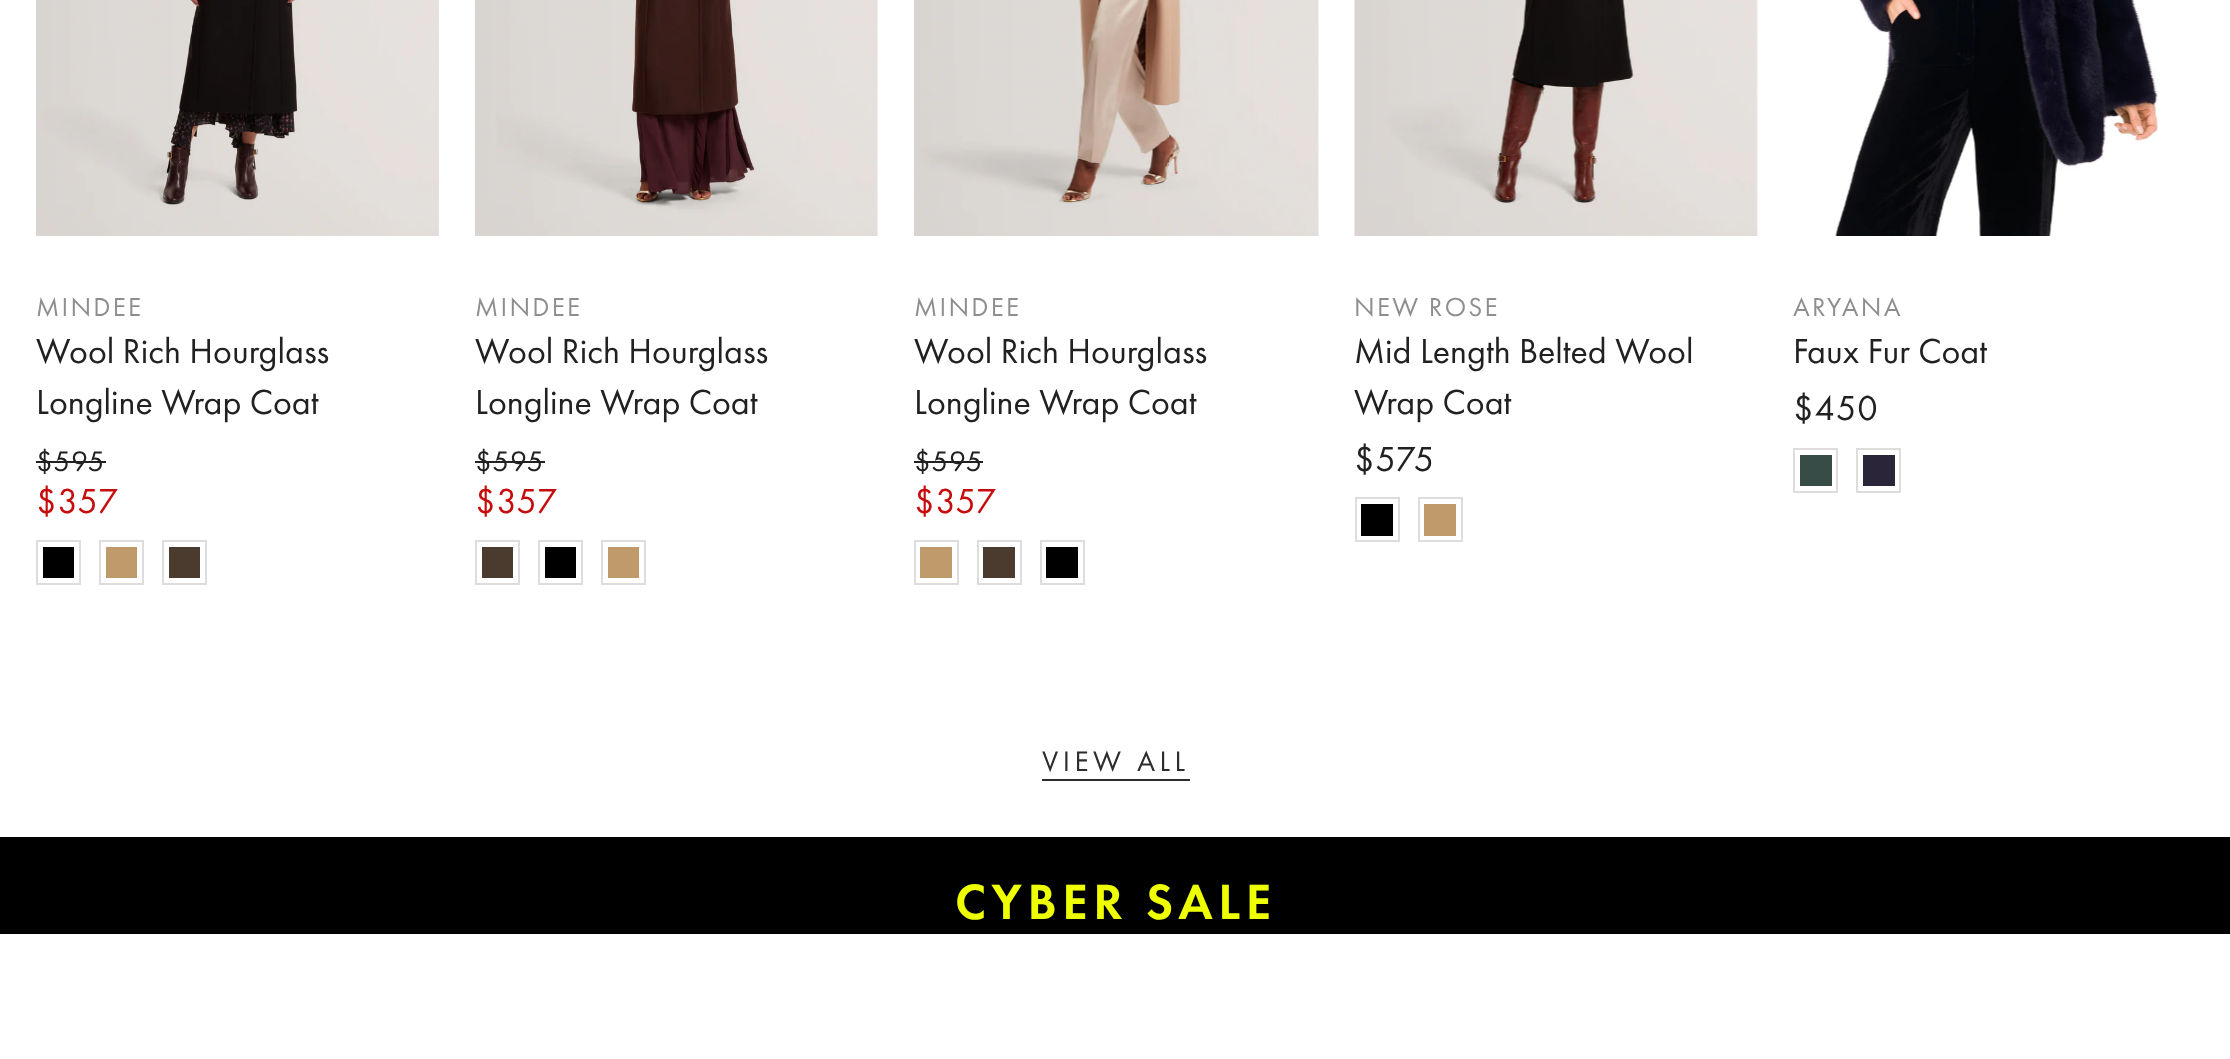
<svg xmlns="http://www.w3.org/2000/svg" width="2230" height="1059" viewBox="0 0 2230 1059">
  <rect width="100%" height="100%" fill="rgb(255,255,255)"/>
  <image x="36" y="0" width="403" height="236" href="pic1.png"/>
  <text x="36" y="316" font-family="Futura PT" font-size="27" letter-spacing="2.25" fill="rgb(142,142,142)">MINDEE</text>
  <g font-family="Futura PT" font-size="36" fill="rgb(33,33,33)">
    <text>
      <tspan x="36" y="363">Wool Rich Hourglass</tspan>
      <tspan x="36" y="414">Longline Wrap Coat</tspan>
    </text>
  </g>
  <text x="36" y="471" font-family="Futura PT" font-size="29.25" letter-spacing="1" fill="rgb(33,33,33)">$595</text>
  <rect x="36" y="461" width="70" height="2" fill="rgb(33,33,33)"/>
  <text x="36" y="513" font-family="Futura PT" font-size="36" letter-spacing="1" fill="rgb(198,12,12)">$357</text>
  <rect x="37" y="541" width="43" height="43" fill="none" stroke="rgb(221,221,221)" stroke-width="2"/>
  <rect x="43" y="547" width="31" height="31" fill="rgb(0,0,0)"/>
  <rect x="100" y="541" width="43" height="43" fill="none" stroke="rgb(221,221,221)" stroke-width="2"/>
  <rect x="106" y="547" width="31" height="31" fill="rgb(193,154,107)"/>
  <rect x="163" y="541" width="43" height="43" fill="none" stroke="rgb(221,221,221)" stroke-width="2"/>
  <rect x="169" y="547" width="31" height="31" fill="rgb(75,59,47)"/>
  <image x="475" y="0" width="403" height="236" href="pic2.png"/>
  <text x="475" y="316" font-family="Futura PT" font-size="27" letter-spacing="2.25" fill="rgb(142,142,142)">MINDEE</text>
  <g font-family="Futura PT" font-size="36" fill="rgb(33,33,33)">
    <text>
      <tspan x="475" y="363">Wool Rich Hourglass</tspan>
      <tspan x="475" y="414">Longline Wrap Coat</tspan>
    </text>
  </g>
  <text x="475" y="471" font-family="Futura PT" font-size="29.25" letter-spacing="1" fill="rgb(33,33,33)">$595</text>
  <rect x="475" y="461" width="70" height="2" fill="rgb(33,33,33)"/>
  <text x="475" y="513" font-family="Futura PT" font-size="36" letter-spacing="1" fill="rgb(198,12,12)">$357</text>
  <rect x="476" y="541" width="43" height="43" fill="none" stroke="rgb(221,221,221)" stroke-width="2"/>
  <rect x="482" y="547" width="31" height="31" fill="rgb(75,59,47)"/>
  <rect x="539" y="541" width="43" height="43" fill="none" stroke="rgb(221,221,221)" stroke-width="2"/>
  <rect x="545" y="547" width="31" height="31" fill="rgb(0,0,0)"/>
  <rect x="602" y="541" width="43" height="43" fill="none" stroke="rgb(221,221,221)" stroke-width="2"/>
  <rect x="608" y="547" width="31" height="31" fill="rgb(193,154,107)"/>
  <image x="914" y="0" width="405" height="236" href="pic3.png"/>
  <text x="914" y="316" font-family="Futura PT" font-size="27" letter-spacing="2.25" fill="rgb(142,142,142)">MINDEE</text>
  <g font-family="Futura PT" font-size="36" fill="rgb(33,33,33)">
    <text>
      <tspan x="914" y="363">Wool Rich Hourglass</tspan>
      <tspan x="914" y="414">Longline Wrap Coat</tspan>
    </text>
  </g>
  <text x="914" y="471" font-family="Futura PT" font-size="29.25" letter-spacing="1" fill="rgb(33,33,33)">$595</text>
  <rect x="914" y="461" width="69" height="2" fill="rgb(33,33,33)"/>
  <text x="914" y="513" font-family="Futura PT" font-size="36" letter-spacing="1" fill="rgb(198,12,12)">$357</text>
  <rect x="915" y="541" width="43" height="43" fill="none" stroke="rgb(221,221,221)" stroke-width="2"/>
  <rect x="920" y="547" width="32" height="31" fill="rgb(193,154,107)"/>
  <rect x="978" y="541" width="43" height="43" fill="none" stroke="rgb(221,221,221)" stroke-width="2"/>
  <rect x="983" y="547" width="32" height="31" fill="rgb(75,59,47)"/>
  <rect x="1041" y="541" width="43" height="43" fill="none" stroke="rgb(221,221,221)" stroke-width="2"/>
  <rect x="1046" y="547" width="32" height="31" fill="rgb(0,0,0)"/>
  <image x="1354" y="0" width="404" height="236" href="pic4.png"/>
  <text x="1354" y="316" font-family="Futura PT" font-size="27" letter-spacing="2.25" fill="rgb(142,142,142)">NEW ROSE</text>
  <g font-family="Futura PT" font-size="36" fill="rgb(33,33,33)">
    <text>
      <tspan x="1354" y="363">Mid Length Belted Wool</tspan>
      <tspan x="1354" y="414">Wrap Coat</tspan>
    </text>
  </g>
  <text x="1354" y="471" font-family="Futura PT" font-size="36" letter-spacing="1" fill="rgb(33,33,33)">$575</text>
  <rect x="1356" y="498" width="43" height="43" fill="none" stroke="rgb(221,221,221)" stroke-width="2"/>
  <rect x="1361" y="504" width="32" height="32" fill="rgb(0,0,0)"/>
  <rect x="1419" y="498" width="43" height="43" fill="none" stroke="rgb(221,221,221)" stroke-width="2"/>
  <rect x="1424" y="504" width="32" height="32" fill="rgb(193,154,107)"/>
  <image x="1835" y="0" width="323" height="236" href="pic5.png"/>
  <text x="1793" y="316" font-family="Futura PT" font-size="27" letter-spacing="2.25" fill="rgb(142,142,142)">ARYANA</text>
  <text x="1793" y="363" font-family="Futura PT" font-size="36" fill="rgb(33,33,33)">Faux Fur Coat</text>
  <text x="1793" y="420" font-family="Futura PT" font-size="36" letter-spacing="1" fill="rgb(33,33,33)">$450</text>
  <rect x="1794" y="449" width="43" height="43" fill="none" stroke="rgb(221,221,221)" stroke-width="2"/>
  <rect x="1800" y="455" width="32" height="31" fill="rgb(55,76,70)"/>
  <rect x="1857" y="449" width="43" height="43" fill="none" stroke="rgb(221,221,221)" stroke-width="2"/>
  <rect x="1863" y="455" width="32" height="31" fill="rgb(42,37,57)"/>
  <text x="1042" y="771" font-family="Futura PT" font-size="29.25" letter-spacing="4.5" fill="rgb(45,45,45)">VIEW ALL</text>
  <rect x="1042" y="779" width="148" height="2" fill="rgb(45,45,45)"/>
  <rect x="0" y="837" width="2230" height="97" fill="rgb(0,0,0)"/>
  <text x="955" y="919" font-family="Futura PT" font-size="51.25" font-weight="500" letter-spacing="5.6" fill="rgb(238,255,0)">CYBER SALE</text>
</svg>
